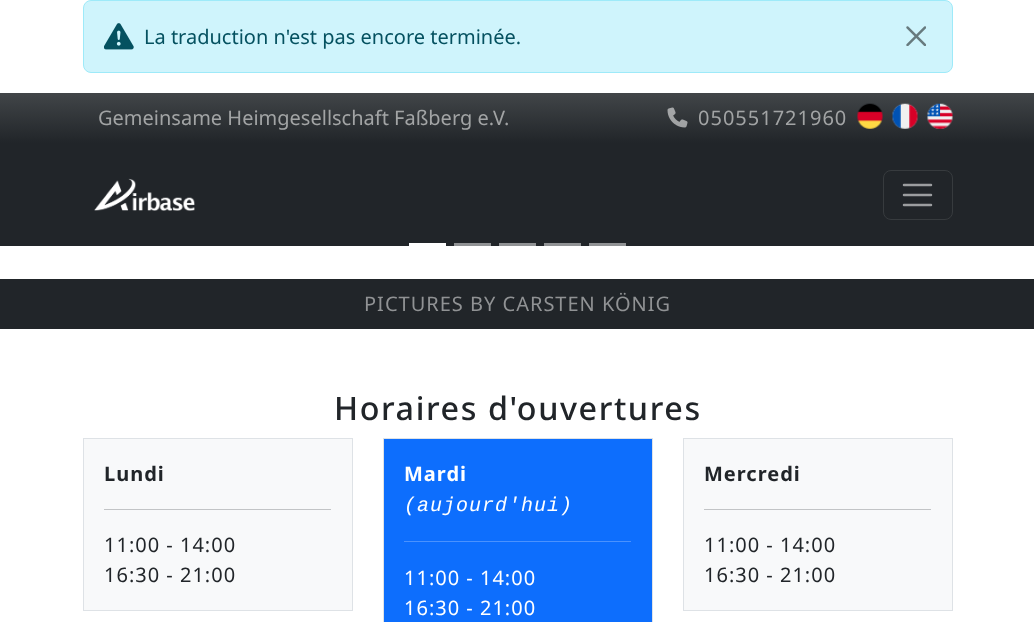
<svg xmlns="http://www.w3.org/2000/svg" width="1034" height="622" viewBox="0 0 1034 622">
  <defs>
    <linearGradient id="g1" gradientUnits="userSpaceOnUse" x1="518" y1="92" x2="518" y2="143"><stop offset="0" stop-color="rgb(66,70,73)"/><stop offset="1" stop-color="rgb(33,37,41)"/></linearGradient>
  </defs>
  <rect width="100%" height="100%" fill="rgb(255,255,255)"/>
  <rect x="83.5" y="0.5" width="869" height="72" rx="7.5" fill="rgb(207,244,252)" stroke="rgb(158,234,249)"/>
  <image x="104" y="23" width="30" height="27" href="pic1.png"/>
  <text x="144" y="44" font-family="Noto Sans" font-size="20" fill="rgb(5,81,96)">La traduction n'est pas encore terminée.</text>
  <image x="906" y="26" width="20" height="20" href="pic2.png"/>
  <rect x="0" y="93" width="1034" height="50" fill="url(#g1)"/>
  <text x="98" y="125" font-family="Noto Sans" font-size="20" fill="rgb(162,164,165)">Gemeinsame Heimgesellschaft Faßberg e.V.</text>
  <image x="667" y="107" width="21" height="21" href="pic3.png"/>
  <text x="698" y="125" font-family="Noto Sans" font-size="20" letter-spacing="1" fill="rgb(162,164,165)">050551721960</text>
  <image x="857" y="103" width="26" height="26" href="pic4.png"/>
  <image x="892" y="103" width="26" height="26" href="pic5.png"/>
  <image x="927" y="103" width="26" height="26" href="pic6.png"/>
  <rect x="0" y="143" width="1034" height="103" fill="rgb(33,37,41)"/>
  <rect x="589" y="243" width="37" height="3" fill="rgb(144,146,148)"/>
  <rect x="544" y="243" width="37" height="3" fill="rgb(144,146,148)"/>
  <rect x="499" y="243" width="37" height="3" fill="rgb(144,146,148)"/>
  <rect x="454" y="243" width="37" height="3" fill="rgb(144,146,148)"/>
  <image x="94" y="178" width="101" height="33" href="pic7.png"/>
  <rect x="883.5" y="170.5" width="69" height="49" rx="7.5" fill="none" stroke="rgb(55,59,62)"/>
  <path d="M904 185H931M904 195H931M904 205H931" fill="none" stroke="rgb(155,157,159)" stroke-width="2.5" stroke-linecap="round"/>
  <rect x="409" y="243" width="37" height="3" fill="rgb(255,255,255)"/>
  <rect x="0" y="279" width="1034" height="50" fill="rgb(33,37,41)"/>
  <text x="364" y="311" font-family="Noto Sans" font-size="20" letter-spacing="1" fill="rgb(144,146,148)">PICTURES BY CARSTEN KÖNIG</text>
  <text x="334" y="420" font-family="Noto Sans" font-size="32.25" font-weight="500" letter-spacing="1.6" fill="rgb(33,37,41)">Horaires d'ouvertures</text>
  <rect x="83.5" y="438.5" width="269" height="172" fill="rgb(248,249,250)" stroke="rgb(222,226,230)"/>
  <text x="104" y="481" font-family="Noto Sans" font-size="20" font-weight="bold" letter-spacing="1" fill="rgb(33,37,41)">Lundi</text>
  <rect x="104" y="509" width="227" height="1" fill="rgb(194,196,198)"/>
  <g font-family="Noto Sans" font-size="20" letter-spacing="1" fill="rgb(33,37,41)">
    <text>
      <tspan x="104" y="552">11:00 - 14:00</tspan>
      <tspan x="104" y="582">16:30 - 21:00</tspan>
    </text>
  </g>
  <rect x="383.5" y="438.5" width="269" height="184" fill="rgb(13,110,253)" stroke="rgb(222,226,230)"/>
  <text x="404" y="481" font-family="Noto Sans" font-size="20" font-weight="bold" letter-spacing="1" fill="rgb(255,255,255)">Mardi</text>
  <text x="404" y="511" font-family="Liberation Mono" font-size="20" font-style="italic" letter-spacing="1" fill="rgb(255,255,255)">(aujourd'hui)</text>
  <rect x="404" y="541" width="227" height="1" fill="rgb(74,146,254)"/>
  <g font-family="Noto Sans" font-size="20" letter-spacing="1" fill="rgb(255,255,255)">
    <text>
      <tspan x="404" y="585">11:00 - 14:00</tspan>
      <tspan x="404" y="615">16:30 - 21:00</tspan>
    </text>
  </g>
  <rect x="683.5" y="438.5" width="269" height="172" fill="rgb(248,249,250)" stroke="rgb(222,226,230)"/>
  <text x="704" y="481" font-family="Noto Sans" font-size="20" font-weight="bold" letter-spacing="1" fill="rgb(33,37,41)">Mercredi</text>
  <rect x="704" y="509" width="227" height="1" fill="rgb(194,196,198)"/>
  <g font-family="Noto Sans" font-size="20" letter-spacing="1" fill="rgb(33,37,41)">
    <text>
      <tspan x="704" y="552">11:00 - 14:00</tspan>
      <tspan x="704" y="582">16:30 - 21:00</tspan>
    </text>
  </g>
</svg>
